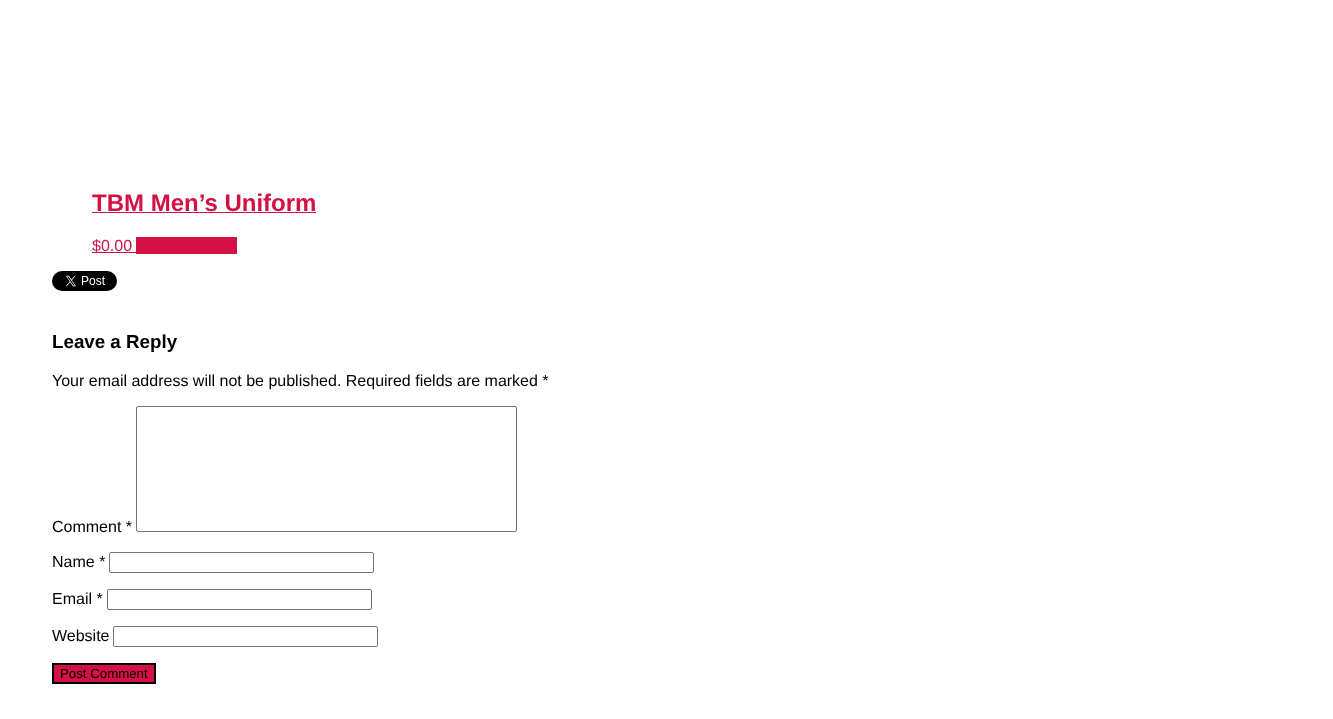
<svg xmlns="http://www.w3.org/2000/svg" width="1333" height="719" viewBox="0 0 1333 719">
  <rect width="100%" height="100%" fill="rgb(255,255,255)"/>
  <text x="92" y="211" font-family="Liberation Sans" font-size="24" font-weight="bold" fill="rgb(211,17,69)">TBM Men’s Uniform</text>
  <rect x="92" y="212" width="224" height="1" fill="rgb(211,17,69)"/>
  <rect x="92" y="252" width="8" height="1" fill="rgb(211,17,69)"/>
  <text x="92" y="251" font-family="Liberation Sans" font-size="16" fill="rgb(211,17,69)">$0.00</text>
  <rect x="100" y="252" width="36" height="1" fill="rgb(211,17,69)"/>
  <rect x="136" y="237" width="101" height="17" fill="rgb(211,17,69)"/>
  <image x="52" y="271" width="65" height="20" href="pic1.png"/>
  <text x="52" y="348" font-family="Liberation Sans" font-size="18.75" font-weight="bold" fill="rgb(0,0,0)">Leave a Reply</text>
  <g font-family="Liberation Sans" font-size="16" fill="rgb(0,0,0)">
    <text x="52" y="386">Your email address will not be published. Required fields are marked *</text>
    <text x="52" y="532">Comment *</text>
  </g>
  <rect x="136.5" y="406.5" width="380" height="125" rx="1.5" fill="none" stroke="rgb(118,118,118)"/>
  <text x="52" y="567" font-family="Liberation Sans" font-size="16" fill="rgb(0,0,0)">Name *</text>
  <rect x="109.5" y="552.5" width="264" height="20" rx="1.5" fill="none" stroke="rgb(118,118,118)"/>
  <text x="52" y="604" font-family="Liberation Sans" font-size="16" fill="rgb(0,0,0)">Email *</text>
  <rect x="107.5" y="589.5" width="264" height="20" rx="1.5" fill="none" stroke="rgb(118,118,118)"/>
  <text x="52" y="641" font-family="Liberation Sans" font-size="16" fill="rgb(0,0,0)">Website</text>
  <rect x="113.5" y="626.5" width="264" height="20" rx="1.5" fill="none" stroke="rgb(118,118,118)"/>
  <rect x="53" y="664" width="102" height="19" fill="rgb(211,17,69)" stroke="rgb(0,0,0)" stroke-width="2"/>
  <text x="60" y="678" font-family="Liberation Sans" font-size="13.25" fill="rgb(0,0,0)">Post Comment</text>
</svg>
